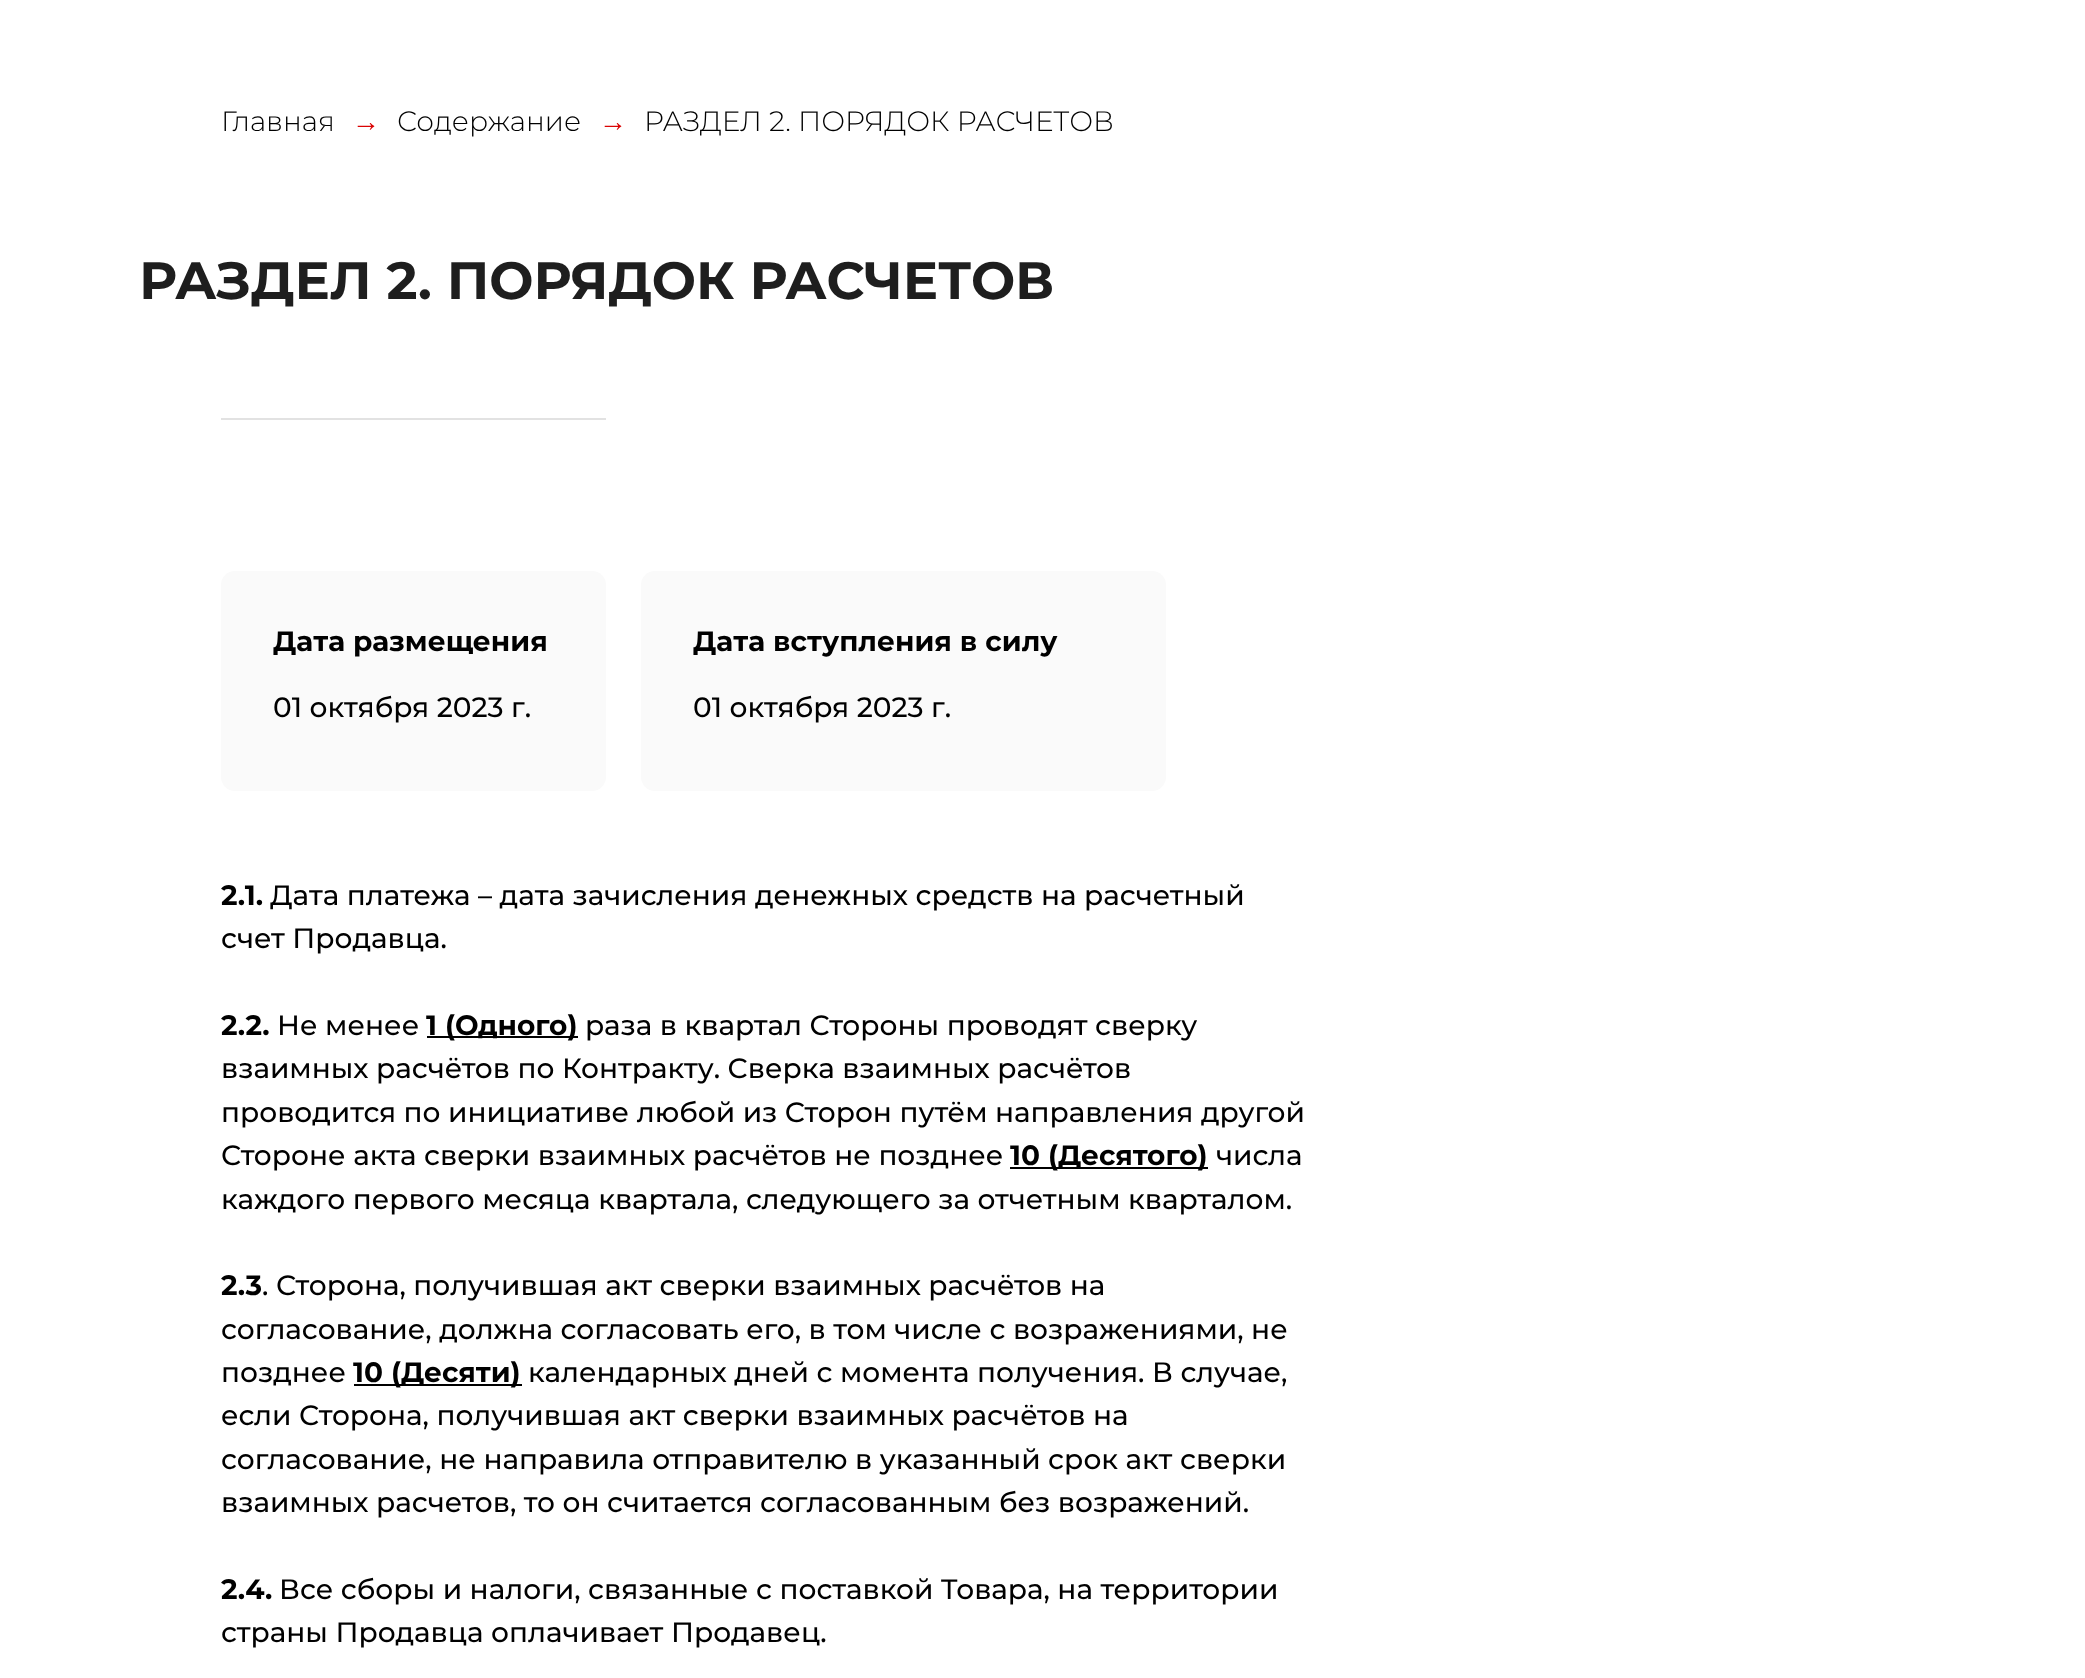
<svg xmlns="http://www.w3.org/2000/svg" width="2085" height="1678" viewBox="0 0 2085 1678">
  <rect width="100%" height="100%" fill="rgb(255,255,255)"/>
  <text x="221" y="131" font-family="Montserrat" font-size="28" font-weight="300" fill="rgb(0,0,0)">Главная</text>
  <text x="352" y="131" font-family="Liberation Sans" font-size="28" fill="rgb(218,4,4)">→</text>
  <text x="397" y="131" font-family="Montserrat" font-size="28" font-weight="300" fill="rgb(0,0,0)">Содержание</text>
  <text x="599" y="131" font-family="Liberation Sans" font-size="28" fill="rgb(218,4,4)">→</text>
  <text x="644" y="131" font-family="Montserrat" font-size="28" font-weight="300" fill="rgb(0,0,0)">РАЗДЕЛ 2. ПОРЯДОК РАСЧЕТОВ</text>
  <text x="139" y="299" font-family="Montserrat" font-size="52.5" font-weight="bold" fill="rgb(30,30,30)">РАЗДЕЛ 2. ПОРЯДОК РАСЧЕТОВ</text>
  <rect x="221" y="418" width="385" height="2" fill="rgb(226,226,226)"/>
  <rect x="221" y="571" width="385" height="220" rx="14" fill="rgb(250,250,250)"/>
  <text x="273" y="651" font-family="Montserrat" font-size="28" font-weight="bold" fill="rgb(0,0,0)">Дата размещения</text>
  <text x="273" y="717" font-family="Montserrat" font-size="28" font-weight="500" fill="rgb(0,0,0)">01 октября 2023 г.</text>
  <rect x="641" y="571" width="525" height="220" rx="14" fill="rgb(250,250,250)"/>
  <text x="693" y="651" font-family="Montserrat" font-size="28" font-weight="bold" fill="rgb(0,0,0)">Дата вступления в силу</text>
  <text x="693" y="717" font-family="Montserrat" font-size="28" font-weight="500" fill="rgb(0,0,0)">01 октября 2023 г.</text>
  <text x="221" y="905" font-family="Montserrat" font-size="28" font-weight="bold" fill="rgb(0,0,0)">2.1.</text>
  <g font-family="Montserrat" font-size="28" font-weight="500" fill="rgb(0,0,0)">
    <text x="270" y="905">Дата платежа – дата зачисления денежных средств на расчетный</text>
    <text x="221" y="948">счет Продавца.</text>
  </g>
  <text x="221" y="1035" font-family="Montserrat" font-size="28" font-weight="bold" fill="rgb(0,0,0)">2.2.</text>
  <text x="277" y="1035" font-family="Montserrat" font-size="28" font-weight="500" fill="rgb(0,0,0)">Не менее</text>
  <rect x="427" y="1036" width="151" height="2" fill="rgb(0,0,0)"/>
  <text x="426" y="1035" font-family="Montserrat" font-size="28" font-weight="bold" fill="rgb(0,0,0)">1 (Одного)</text>
  <g font-family="Montserrat" font-size="28" font-weight="500" fill="rgb(0,0,0)">
    <text x="585" y="1035">раза в квартал Стороны проводят сверку</text>
    <text>
      <tspan x="221" y="1078">взаимных расчётов по Контракту. Сверка взаимных расчётов</tspan>
      <tspan x="221" y="1122">проводится по инициативе любой из Сторон путём направления другой</tspan>
      <tspan x="221" y="1165">Стороне акта сверки взаимных расчётов не позднее</tspan>
    </text>
  </g>
  <rect x="1010" y="1167" width="198" height="2" fill="rgb(0,0,0)"/>
  <text x="1010" y="1165" font-family="Montserrat" font-size="28" font-weight="bold" fill="rgb(0,0,0)">10 (Десятого)</text>
  <g font-family="Montserrat" font-size="28" font-weight="500" fill="rgb(0,0,0)">
    <text x="1216" y="1165">числа</text>
    <text x="221" y="1209">каждого первого месяца квартала, следующего за отчетным кварталом.</text>
  </g>
  <text x="221" y="1295" font-family="Montserrat" font-size="28" font-weight="bold" fill="rgb(0,0,0)">2.3</text>
  <g font-family="Montserrat" font-size="28" font-weight="500" fill="rgb(0,0,0)">
    <text x="262" y="1295">. Сторона, получившая акт сверки взаимных расчётов на</text>
    <text>
      <tspan x="221" y="1339">согласование, должна согласовать его, в том числе с возражениями, не</tspan>
      <tspan x="221" y="1382">позднее</tspan>
    </text>
  </g>
  <rect x="354" y="1384" width="168" height="2" fill="rgb(0,0,0)"/>
  <text x="353" y="1382" font-family="Montserrat" font-size="28" font-weight="bold" fill="rgb(0,0,0)">10 (Десяти)</text>
  <g font-family="Montserrat" font-size="28" font-weight="500" fill="rgb(0,0,0)">
    <text x="528" y="1382">календарных дней с момента получения. В случае,</text>
    <text>
      <tspan x="221" y="1425">если Сторона, получившая акт сверки взаимных расчётов на</tspan>
      <tspan x="221" y="1469">согласование, не направила отправителю в указанный срок акт сверки</tspan>
      <tspan x="221" y="1512">взаимных расчетов, то он считается согласованным без возражений.</tspan>
    </text>
  </g>
  <text x="221" y="1599" font-family="Montserrat" font-size="28" font-weight="bold" fill="rgb(0,0,0)">2.4.</text>
  <g font-family="Montserrat" font-size="28" font-weight="500" fill="rgb(0,0,0)">
    <text x="279" y="1599">Все сборы и налоги, связанные с поставкой Товара, на территории</text>
    <text x="221" y="1642">страны Продавца оплачивает Продавец.</text>
  </g>
</svg>
